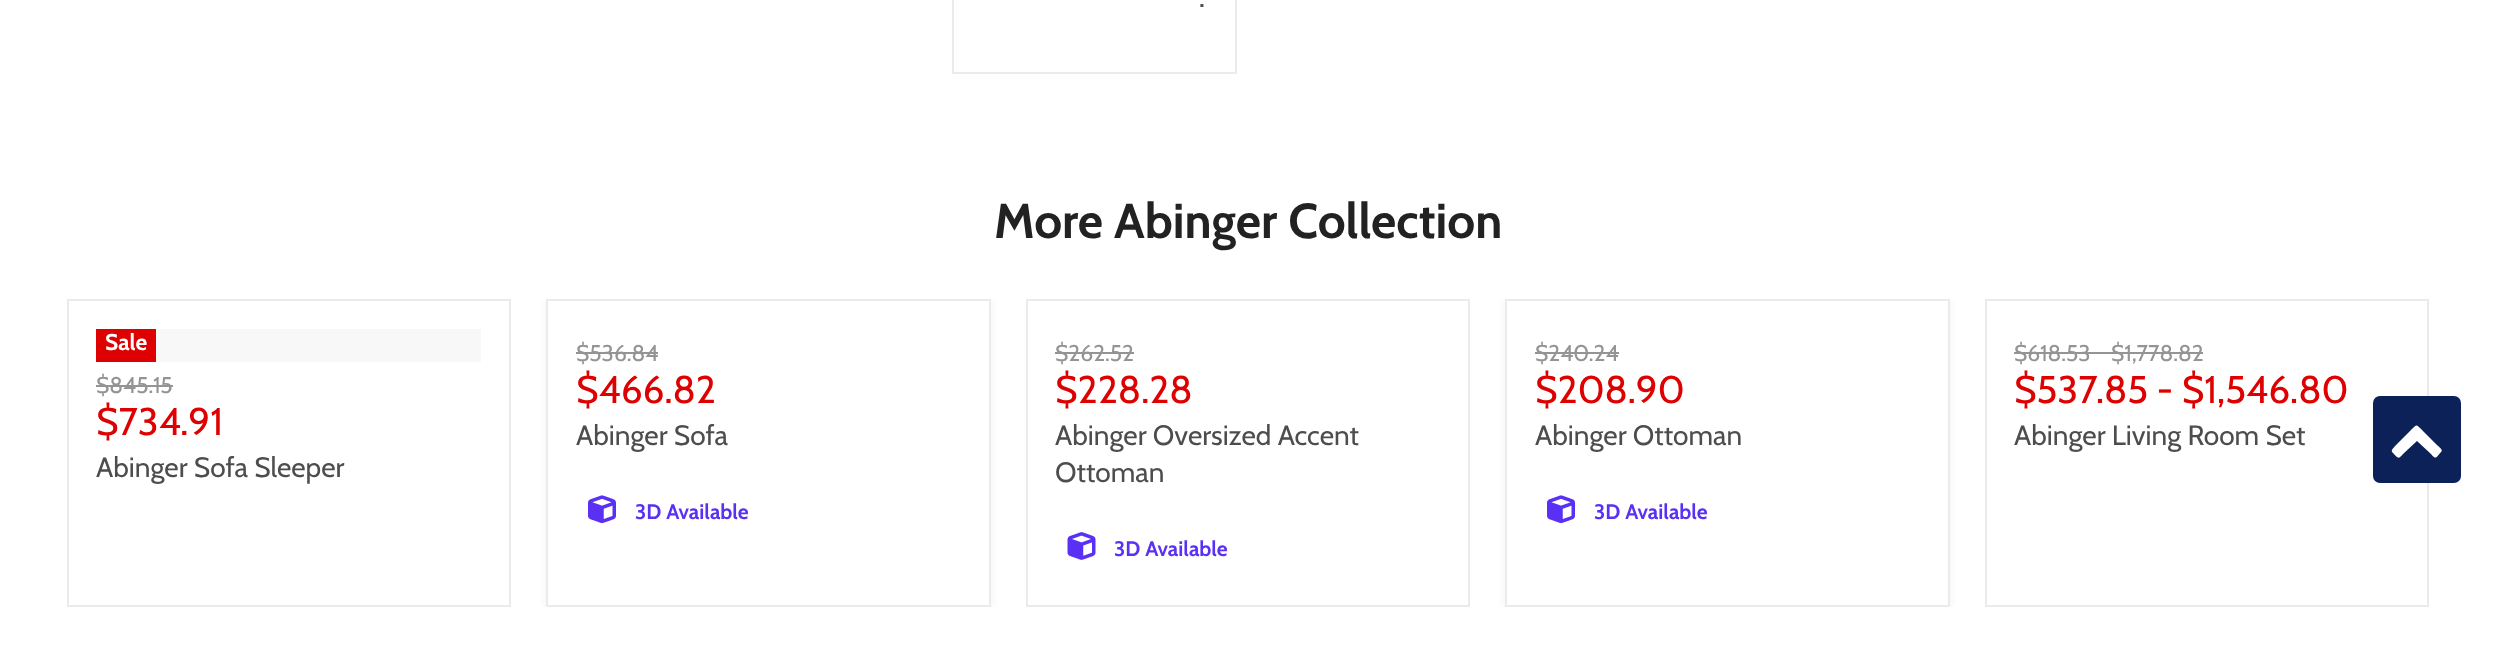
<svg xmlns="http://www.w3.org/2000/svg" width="2494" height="658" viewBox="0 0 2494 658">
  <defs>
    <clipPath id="clip1"><rect x="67" y="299" width="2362" height="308"/></clipPath>
  </defs>
  <rect width="100%" height="100%" fill="rgb(255,255,255)"/>
  <rect x="953" y="-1" width="283" height="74" fill="none" stroke="rgba(128,128,128,0.16)" stroke-width="2"/>
  <text x="1199" y="7" font-family="Cabin" font-size="28" fill="rgb(77,77,77)">.</text>
  <text x="994" y="238" font-family="Cabin" font-size="49" font-weight="bold" fill="rgb(34,34,34)">More Abinger Collection</text>
  <rect x="68" y="300" width="442" height="306" fill="none" stroke="rgb(235,235,235)" stroke-width="2"/>
  <rect x="96" y="329" width="60" height="33" fill="rgb(222,1,1)"/>
  <text x="105" y="350" font-family="Cabin" font-size="22.75" font-weight="bold" fill="rgb(255,255,255)">Sale</text>
  <rect x="156" y="329" width="325" height="33" fill="rgb(248,248,248)"/>
  <text x="96" y="393" font-family="Cabin" font-size="22.75" fill="rgb(148,148,148)">$845.15</text>
  <rect x="96" y="385" width="77" height="2" fill="rgb(148,148,148)"/>
  <text x="96" y="435" font-family="Cabin" font-size="38.5" fill="rgb(222,1,1)">$734.91</text>
  <text x="96" y="477" font-family="Cabin" font-size="28" fill="rgb(77,77,77)">Abinger Sofa Sleeper</text>
  <g clip-path="url(#clip1)">
    <rect x="546" y="301" width="445" height="308" fill="rgba(128,128,128,0.11)" filter="blur(3.5px)"/>
  </g>
  <rect x="547" y="300" width="443" height="306" fill="rgb(255,255,255)" stroke="rgb(235,235,235)" stroke-width="2"/>
  <text x="576" y="361" font-family="Cabin" font-size="22.75" fill="rgb(148,148,148)">$536.84</text>
  <rect x="576" y="352" width="82" height="2" fill="rgb(148,148,148)"/>
  <text x="576" y="403" font-family="Cabin" font-size="38.5" fill="rgb(222,1,1)">$466.82</text>
  <text x="576" y="445" font-family="Cabin" font-size="28" fill="rgb(77,77,77)">Abinger Sofa</text>
  <image x="588" y="495" width="28" height="29" href="pic1.png"/>
  <text x="635" y="519" font-family="Cabin" font-size="21" font-weight="bold" fill="rgb(90,49,244)">3D Available</text>
  <rect x="1027" y="300" width="442" height="306" fill="none" stroke="rgb(235,235,235)" stroke-width="2"/>
  <text x="1055" y="361" font-family="Cabin" font-size="22.75" fill="rgb(148,148,148)">$262.52</text>
  <rect x="1055" y="352" width="79" height="2" fill="rgb(148,148,148)"/>
  <text x="1055" y="403" font-family="Cabin" font-size="38.5" fill="rgb(222,1,1)">$228.28</text>
  <g font-family="Cabin" font-size="28" fill="rgb(77,77,77)">
    <text>
      <tspan x="1055" y="445">Abinger Oversized Accent</tspan>
      <tspan x="1055" y="482">Ottoman</tspan>
    </text>
  </g>
  <image x="1067" y="532" width="29" height="28" href="pic2.png"/>
  <text x="1114" y="556" font-family="Cabin" font-size="21" font-weight="bold" fill="rgb(90,49,244)">3D Available</text>
  <g clip-path="url(#clip1)">
    <rect x="1505" y="301" width="445" height="308" fill="rgba(128,128,128,0.11)" filter="blur(3.5px)"/>
  </g>
  <rect x="1506" y="300" width="443" height="306" fill="rgb(255,255,255)" stroke="rgb(235,235,235)" stroke-width="2"/>
  <text x="1535" y="361" font-family="Cabin" font-size="22.75" fill="rgb(148,148,148)">$240.24</text>
  <rect x="1535" y="352" width="84" height="2" fill="rgb(148,148,148)"/>
  <text x="1535" y="403" font-family="Cabin" font-size="38.5" fill="rgb(222,1,1)">$208.90</text>
  <text x="1535" y="445" font-family="Cabin" font-size="28" fill="rgb(77,77,77)">Abinger Ottoman</text>
  <image x="1547" y="495" width="28" height="29" href="pic1.png"/>
  <text x="1594" y="519" font-family="Cabin" font-size="21" font-weight="bold" fill="rgb(90,49,244)">3D Available</text>
  <rect x="1986" y="300" width="442" height="306" fill="none" stroke="rgb(235,235,235)" stroke-width="2"/>
  <text x="2014" y="361" font-family="Cabin" font-size="22.75" fill="rgb(148,148,148)">$618.53</text>
  <rect x="2014" y="352" width="97" height="2" fill="rgb(148,148,148)"/>
  <text x="2111" y="361" font-family="Cabin" font-size="22.75" fill="rgb(148,148,148)">$1,778.82</text>
  <rect x="2111" y="352" width="92" height="2" fill="rgb(148,148,148)"/>
  <text x="2014" y="403" font-family="Cabin" font-size="38.5" fill="rgb(222,1,1)">$537.85 - $1,546.80</text>
  <text x="2014" y="445" font-family="Cabin" font-size="28" fill="rgb(77,77,77)">Abinger Living Room Set</text>
  <rect x="2373" y="396" width="88" height="87" rx="7" fill="rgb(11,33,88)"/>
  <path d="M2441 452C2436 458 2436 460 2431 454L2417 441L2403 454C2398 460 2398 458 2393 453C2390 450 2393 449 2396 445L2411 430C2417 424 2416 424 2422 430L2437 445C2438 446 2444 450 2441 452Z" fill="rgb(255,255,255)"/>
</svg>
